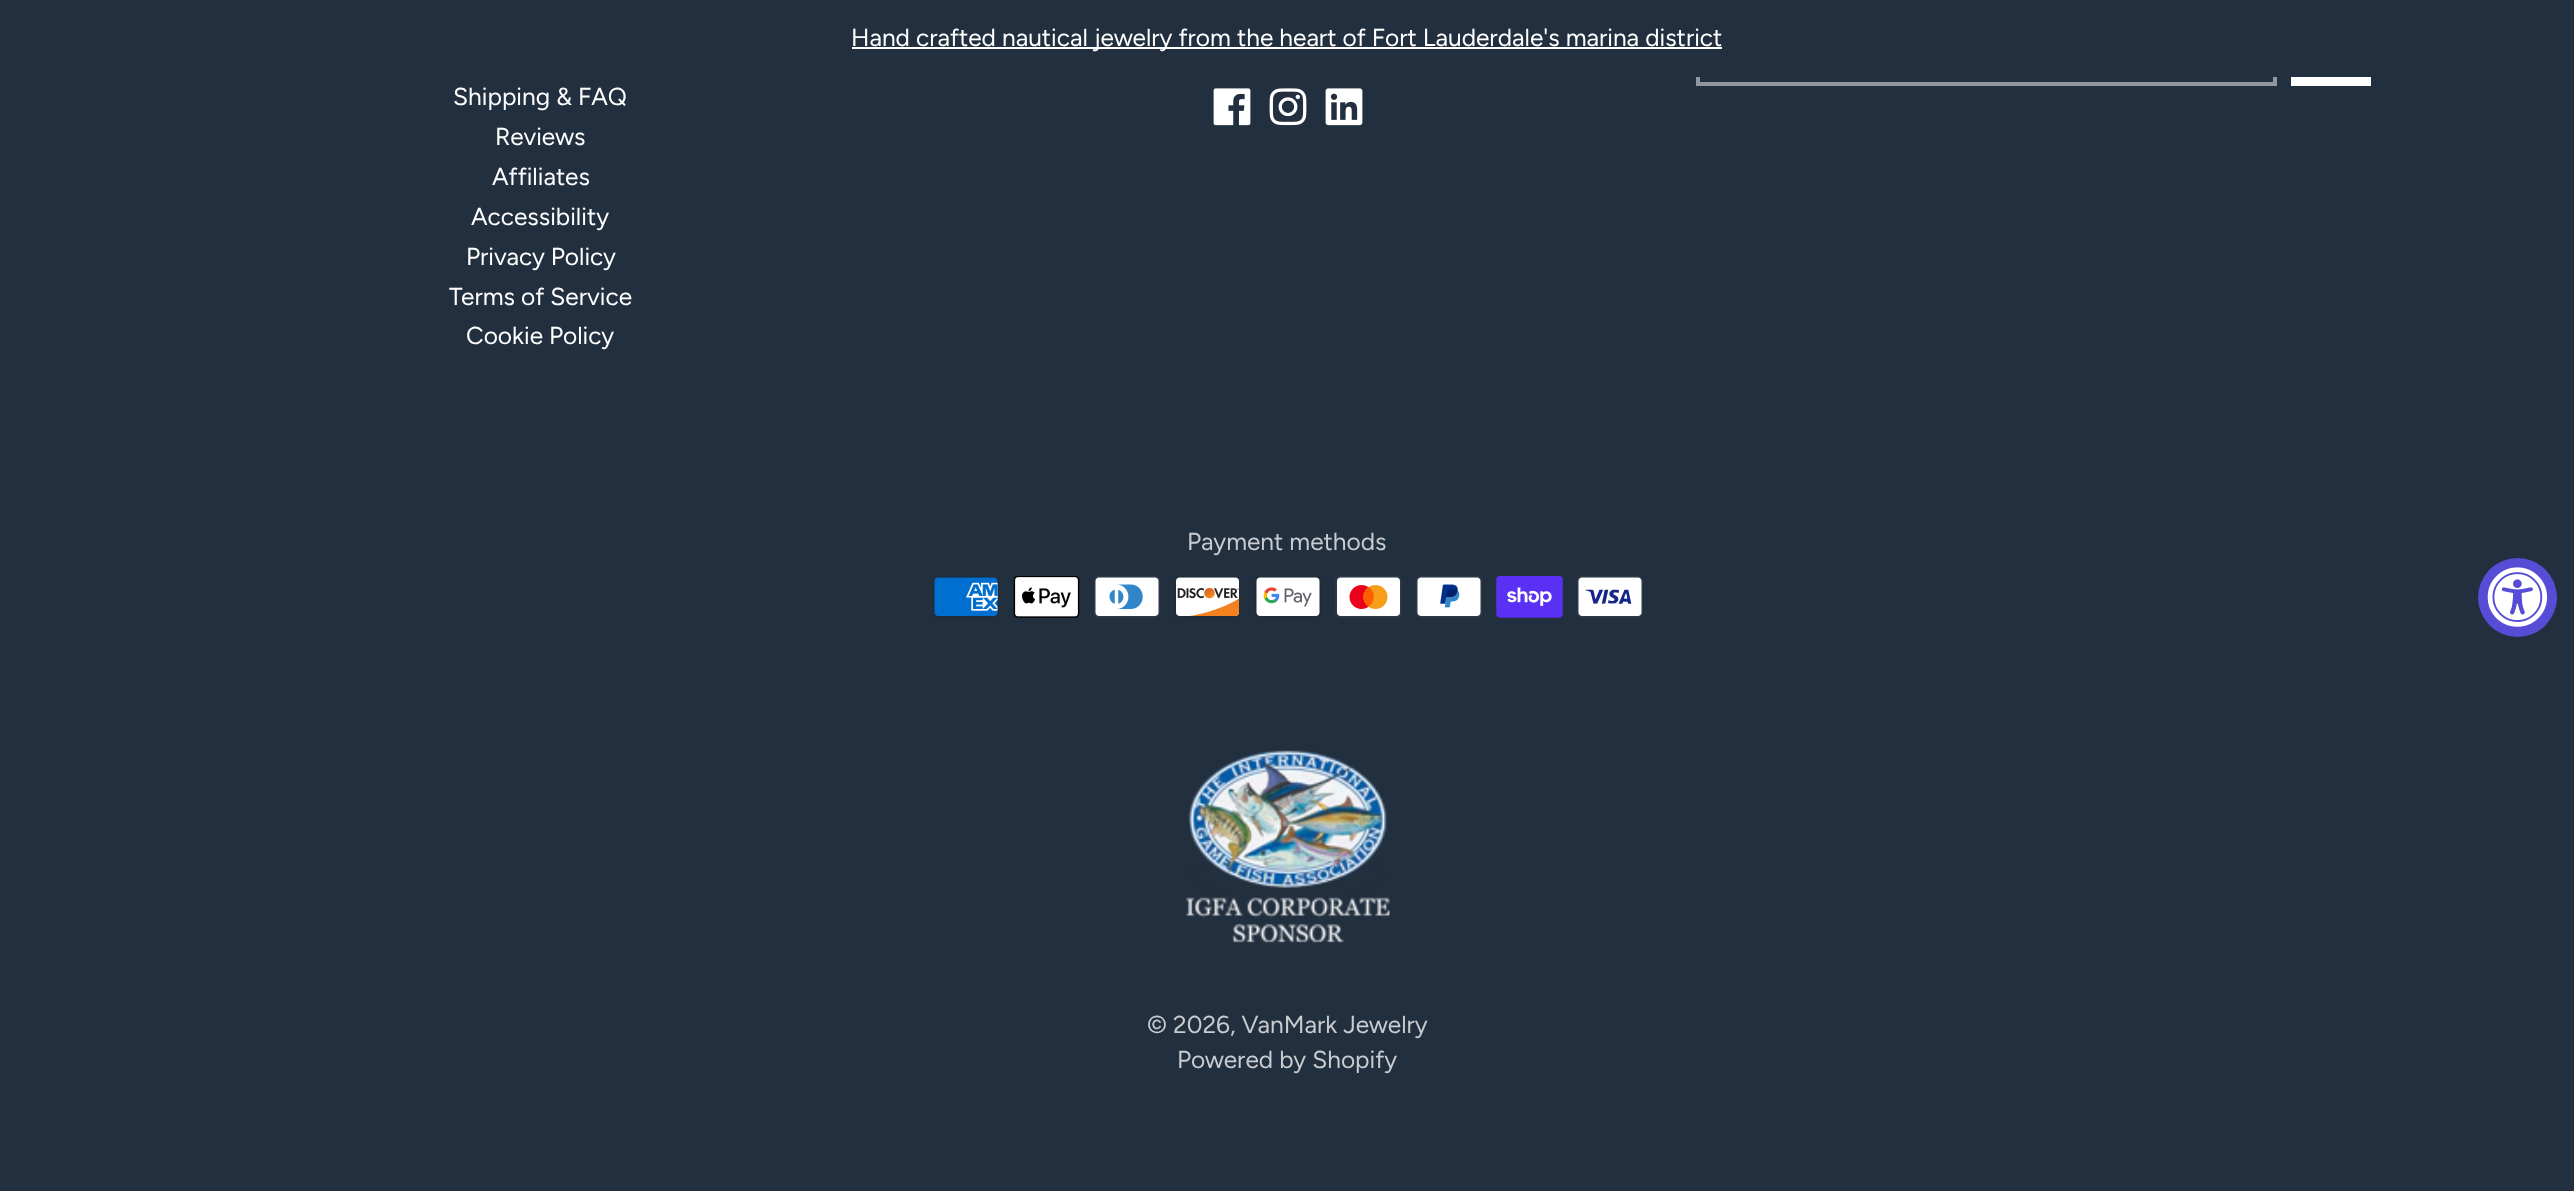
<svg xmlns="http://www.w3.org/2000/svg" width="2574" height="1191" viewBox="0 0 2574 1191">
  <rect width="100%" height="100%" fill="rgb(34,47,62)"/>
  <rect x="1698" y="18" width="577" height="66" fill="none" stroke="rgb(145,151,159)" stroke-width="4"/>
  <rect x="1696" y="16" width="581" height="61" fill="rgb(34,47,62)"/>
  <rect x="852" y="47" width="870" height="2" fill="rgb(255,255,255)"/>
  <text x="851" y="46" font-family="Figtree" font-size="24.5" fill="rgb(255,255,255)">Hand crafted nautical jewelry from the heart of Fort Lauderdale's marina district</text>
  <rect x="2291" y="77" width="80" height="9" fill="rgb(255,255,255)"/>
  <g font-family="Figtree" font-size="24.5" fill="rgb(255,255,255)">
    <text x="453" y="105">Shipping &amp; FAQ</text>
    <text x="495" y="145">Reviews</text>
    <text x="492" y="185">Affiliates</text>
    <text x="471" y="225">Accessibility</text>
    <text x="466" y="265">Privacy Policy</text>
    <text x="449" y="305">Terms of Service</text>
    <text x="466" y="344">Cookie Policy</text>
  </g>
  <image x="1213" y="88" width="38" height="38" href="pic1.png"/>
  <image x="1269" y="88" width="38" height="38" href="pic2.png"/>
  <image x="1325" y="88" width="38" height="38" href="pic3.png"/>
  <text x="1187" y="550" font-family="Figtree" font-size="24.5" fill="rgb(200,203,207)">Payment methods</text>
  <image x="933" y="576" width="66" height="41" href="pic4.png"/>
  <image x="1013" y="576" width="67" height="42" href="pic5.png"/>
  <image x="1094" y="576" width="66" height="42" href="pic6.png"/>
  <image x="1175" y="576" width="65" height="41" href="pic7.png"/>
  <image x="1255" y="576" width="66" height="41" href="pic8.png"/>
  <image x="1335" y="576" width="67" height="42" href="pic9.png"/>
  <image x="1416" y="576" width="66" height="42" href="pic10.png"/>
  <image x="1496" y="576" width="67" height="42" href="pic11.png"/>
  <image x="1577" y="576" width="66" height="42" href="pic12.png"/>
  <image x="1186" y="750" width="204" height="193" href="pic13.png"/>
  <g font-family="Figtree" font-size="24.5" fill="rgb(200,203,207)">
    <text x="1147" y="1033">© 2026, VanMark Jewelry</text>
    <text x="1177" y="1068">Powered by Shopify</text>
  </g>
  <circle cx="2517.5" cy="597.5" r="39.5" fill="rgb(87,76,213)"/>
  <image x="2487" y="567" width="61" height="60" href="pic14.png"/>
</svg>
